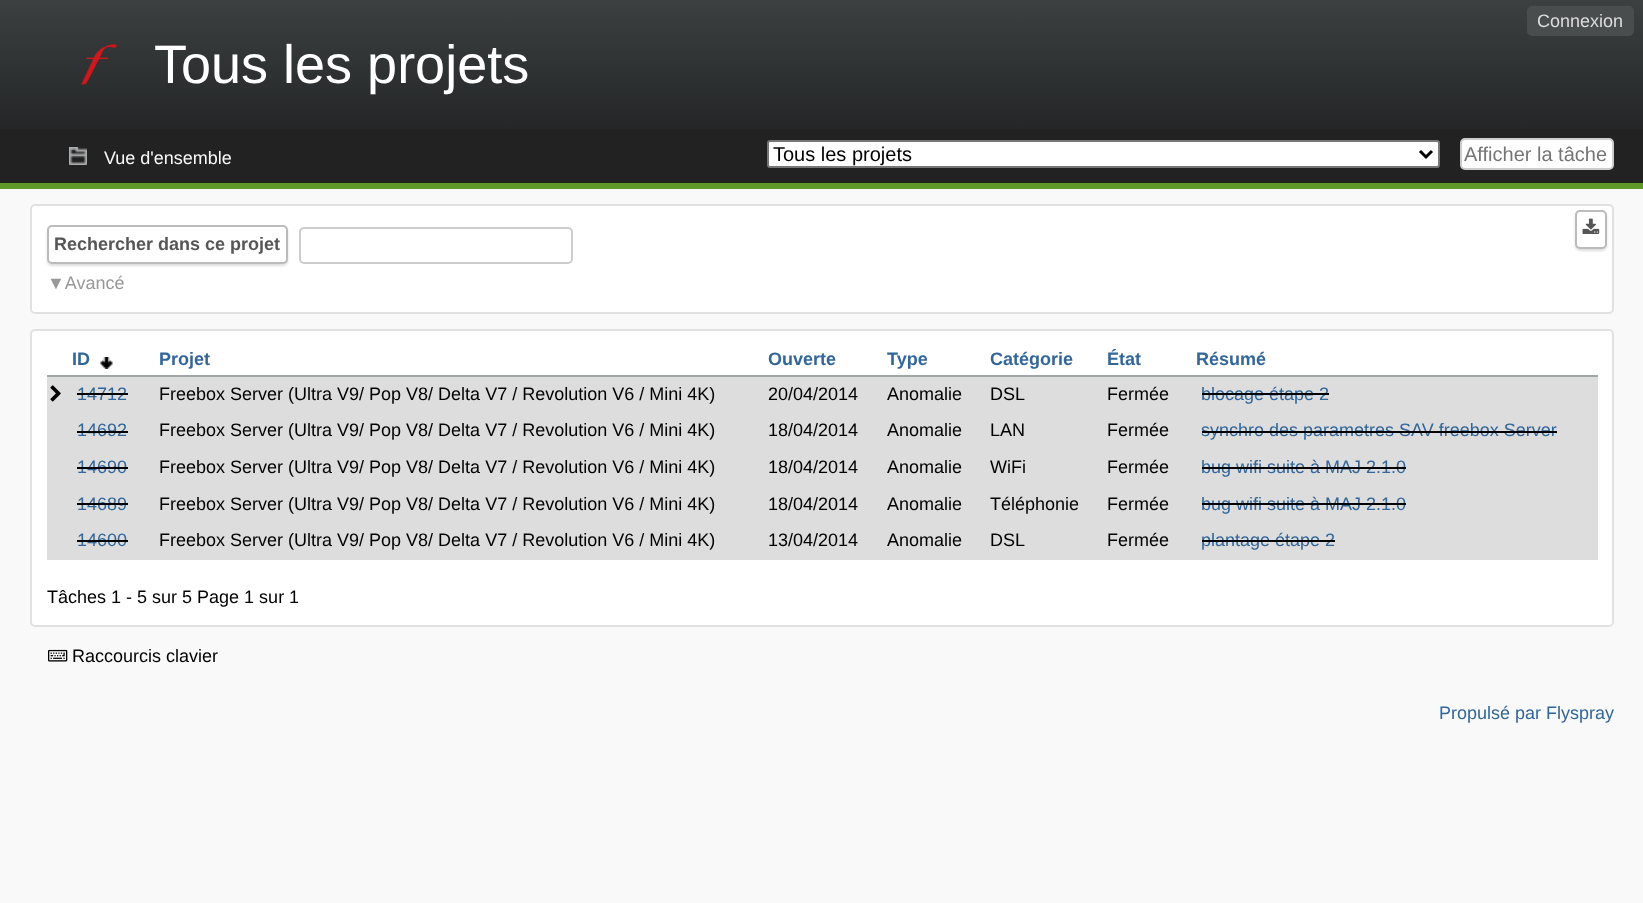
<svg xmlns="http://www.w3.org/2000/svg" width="1643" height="903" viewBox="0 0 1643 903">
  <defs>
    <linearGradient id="g1" gradientUnits="userSpaceOnUse" x1="822" y1="0" x2="822" y2="129"><stop offset="0" stop-color="rgb(60,64,65)"/><stop offset="1" stop-color="rgb(36,38,39)"/></linearGradient>
  </defs>
  <rect width="100%" height="100%" fill="rgb(249,249,249)"/>
  <rect x="0" y="0" width="1643" height="129" fill="url(#g1)"/>
  <rect x="1527" y="6" width="107" height="30" rx="5" fill="rgb(73,77,78)"/>
  <text x="1537" y="27" font-family="Liberation Sans" font-size="18" fill="rgb(221,221,221)">Connexion</text>
  <image x="81" y="44" width="36" height="41" href="pic1.png"/>
  <text x="154" y="83" font-family="Liberation Sans" font-size="54" fill="rgb(255,255,255)">Tous les projets</text>
  <rect x="0" y="129" width="1643" height="54" fill="rgb(34,34,34)"/>
  <rect x="0" y="183" width="1643" height="6" fill="rgb(95,151,41)"/>
  <image x="69" y="147" width="18" height="18" href="pic2.png"/>
  <text x="104" y="164" font-family="Liberation Sans" font-size="18" fill="rgb(249,249,249)">Vue d'ensemble</text>
  <rect x="768" y="141" width="671" height="26" rx="2" fill="rgb(255,255,255)" stroke="rgb(118,118,118)" stroke-width="2"/>
  <path d="M1420 151L1426 157L1432 151" fill="none" stroke="rgb(0,0,0)" stroke-width="3"/>
  <text x="773" y="161" font-family="Liberation Sans" font-size="20" fill="rgb(0,0,0)">Tous les projets</text>
  <rect x="1461" y="139" width="152" height="30" rx="4" fill="rgb(255,255,255)" stroke="rgb(204,204,204)" stroke-width="2"/>
  <text x="1464" y="161" font-family="Liberation Sans" font-size="20" fill="rgb(117,117,117)">Afficher la tâche</text>
  <rect x="31" y="205" width="1582" height="108" rx="4" fill="rgb(255,255,255)" stroke="rgb(225,225,225)" stroke-width="2"/>
  <rect x="47" y="227" width="241" height="39" rx="5" fill="rgb(221,221,221)" filter="blur(1px)"/>
  <rect x="48" y="226" width="239" height="37" rx="4" fill="rgb(255,255,255)" stroke="rgb(187,187,187)" stroke-width="2"/>
  <text x="54" y="250" font-family="Liberation Sans" font-size="18" font-weight="bold" fill="rgb(86,86,86)">Rechercher dans ce projet</text>
  <rect x="300" y="228" width="272" height="35" rx="4" fill="none" stroke="rgb(204,204,204)" stroke-width="2"/>
  <rect x="1575" y="212" width="32" height="39" rx="5" fill="rgb(221,221,221)" filter="blur(1px)"/>
  <rect x="1576" y="211" width="30" height="37" rx="4" fill="rgb(255,255,255)" stroke="rgb(187,187,187)" stroke-width="2"/>
  <image x="1582" y="218" width="18" height="16" href="pic3.png"/>
  <text x="47" y="289" font-family="Liberation Sans" font-size="18" fill="rgb(153,153,153)">▼Avancé</text>
  <rect x="31" y="330" width="1582" height="296" rx="4" fill="rgb(255,255,255)" stroke="rgb(225,225,225)" stroke-width="2"/>
  <text x="72" y="365" font-family="Liberation Sans" font-size="18" font-weight="bold" fill="rgb(51,102,153)">ID</text>
  <image x="100" y="357" width="13" height="12" href="pic4.png"/>
  <g font-family="Liberation Sans" font-size="18" font-weight="bold" fill="rgb(51,102,153)">
    <text x="159" y="365">Projet</text>
    <text x="768" y="365">Ouverte</text>
    <text x="887" y="365">Type</text>
    <text x="990" y="365">Catégorie</text>
    <text x="1107" y="365">État</text>
    <text x="1196" y="365">Résumé</text>
  </g>
  <rect x="47" y="375" width="1551" height="2" fill="rgb(161,166,168)"/>
  <rect x="47" y="377" width="1551" height="183" fill="rgb(221,221,221)"/>
  <image x="50" y="385" width="11" height="17" href="pic5.png"/>
  <text x="77" y="400" font-family="Liberation Sans" font-size="18" fill="rgb(51,102,153)">14712</text>
  <rect x="77" y="393" width="51" height="2" fill="rgb(0,0,0)"/>
  <g font-family="Liberation Sans" font-size="18" fill="rgb(0,0,0)">
    <text x="159" y="400">Freebox Server (Ultra V9/ Pop V8/ Delta V7 / Revolution V6 / Mini 4K)</text>
    <text x="768" y="400">20/04/2014</text>
    <text x="887" y="400">Anomalie</text>
    <text x="990" y="400">DSL</text>
    <text x="1107" y="400">Fermée</text>
  </g>
  <text x="1201" y="400" font-family="Liberation Sans" font-size="18" fill="rgb(51,102,153)">blocage étape 2</text>
  <rect x="1202" y="393" width="127" height="2" fill="rgb(0,0,0)"/>
  <text x="77" y="436" font-family="Liberation Sans" font-size="18" fill="rgb(51,102,153)">14692</text>
  <rect x="77" y="431" width="51" height="2" fill="rgb(0,0,0)"/>
  <g font-family="Liberation Sans" font-size="18" fill="rgb(0,0,0)">
    <text x="159" y="436">Freebox Server (Ultra V9/ Pop V8/ Delta V7 / Revolution V6 / Mini 4K)</text>
    <text x="768" y="436">18/04/2014</text>
    <text x="887" y="436">Anomalie</text>
    <text x="990" y="436">LAN</text>
    <text x="1107" y="436">Fermée</text>
  </g>
  <text x="1201" y="436" font-family="Liberation Sans" font-size="18" fill="rgb(51,102,153)">synchro des parametres SAV freebox Server</text>
  <rect x="1202" y="431" width="355" height="2" fill="rgb(0,0,0)"/>
  <text x="77" y="473" font-family="Liberation Sans" font-size="18" fill="rgb(51,102,153)">14690</text>
  <rect x="77" y="467" width="51" height="2" fill="rgb(0,0,0)"/>
  <g font-family="Liberation Sans" font-size="18" fill="rgb(0,0,0)">
    <text x="159" y="473">Freebox Server (Ultra V9/ Pop V8/ Delta V7 / Revolution V6 / Mini 4K)</text>
    <text x="768" y="473">18/04/2014</text>
    <text x="887" y="473">Anomalie</text>
    <text x="990" y="473">WiFi</text>
    <text x="1107" y="473">Fermée</text>
  </g>
  <text x="1201" y="473" font-family="Liberation Sans" font-size="18" fill="rgb(51,102,153)">bug wifi suite à MAJ 2.1.0</text>
  <rect x="1202" y="467" width="204" height="2" fill="rgb(0,0,0)"/>
  <text x="77" y="510" font-family="Liberation Sans" font-size="18" fill="rgb(51,102,153)">14689</text>
  <rect x="77" y="503" width="51" height="2" fill="rgb(0,0,0)"/>
  <g font-family="Liberation Sans" font-size="18" fill="rgb(0,0,0)">
    <text x="159" y="510">Freebox Server (Ultra V9/ Pop V8/ Delta V7 / Revolution V6 / Mini 4K)</text>
    <text x="768" y="510">18/04/2014</text>
    <text x="887" y="510">Anomalie</text>
    <text x="990" y="510">Téléphonie</text>
    <text x="1107" y="510">Fermée</text>
  </g>
  <text x="1201" y="510" font-family="Liberation Sans" font-size="18" fill="rgb(51,102,153)">bug wifi suite à MAJ 2.1.0</text>
  <rect x="1202" y="503" width="204" height="2" fill="rgb(0,0,0)"/>
  <text x="77" y="546" font-family="Liberation Sans" font-size="18" fill="rgb(51,102,153)">14600</text>
  <rect x="77" y="540" width="51" height="2" fill="rgb(0,0,0)"/>
  <g font-family="Liberation Sans" font-size="18" fill="rgb(0,0,0)">
    <text x="159" y="546">Freebox Server (Ultra V9/ Pop V8/ Delta V7 / Revolution V6 / Mini 4K)</text>
    <text x="768" y="546">13/04/2014</text>
    <text x="887" y="546">Anomalie</text>
    <text x="990" y="546">DSL</text>
    <text x="1107" y="546">Fermée</text>
  </g>
  <text x="1201" y="546" font-family="Liberation Sans" font-size="18" fill="rgb(51,102,153)">plantage étape 2</text>
  <rect x="1202" y="540" width="133" height="2" fill="rgb(0,0,0)"/>
  <text x="47" y="603" font-family="Liberation Sans" font-size="18" fill="rgb(0,0,0)">Tâches 1 - 5 sur 5 Page 1 sur 1</text>
  <image x="48" y="649" width="20" height="13" href="pic6.png"/>
  <text x="72" y="662" font-family="Liberation Sans" font-size="18" fill="rgb(0,0,0)">Raccourcis clavier</text>
  <text x="1439" y="719" font-family="Liberation Sans" font-size="18" fill="rgb(51,102,153)">Propulsé par Flyspray</text>
</svg>
